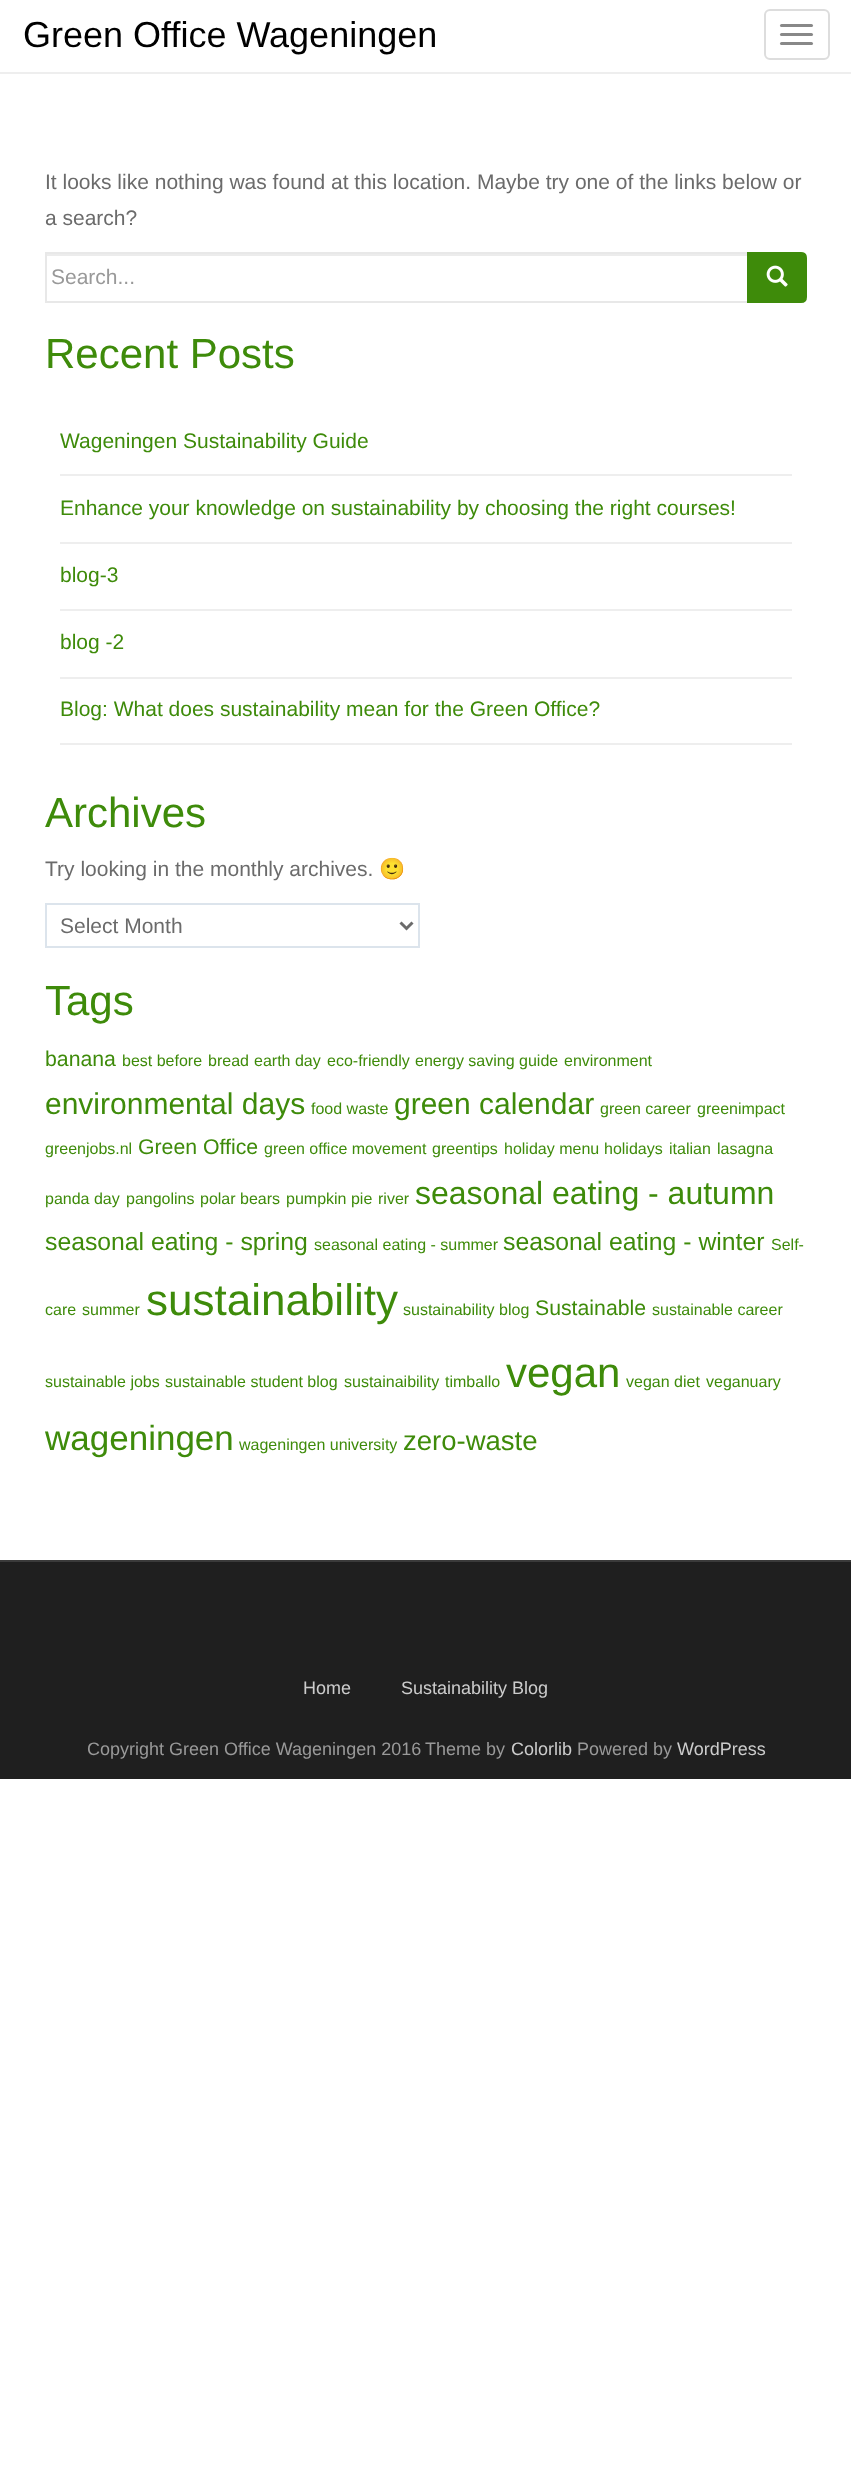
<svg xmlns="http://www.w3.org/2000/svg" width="851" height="2474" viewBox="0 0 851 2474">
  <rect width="100%" height="100%" fill="rgb(255,255,255)"/>
  <rect x="0" y="72" width="851" height="2" fill="rgb(238,238,238)"/>
  <text x="23" y="47" font-family="Liberation Sans" font-size="36" fill="rgb(0,0,0)">Green Office Wageningen</text>
  <rect x="765" y="10" width="64" height="49" rx="5" fill="none" stroke="rgb(221,221,221)" stroke-width="2"/>
  <rect x="780" y="24" width="33" height="3" rx="1.5" fill="rgb(136,136,136)"/>
  <rect x="780" y="33" width="33" height="3" rx="1.5" fill="rgb(136,136,136)"/>
  <rect x="780" y="42" width="33" height="3" rx="1.5" fill="rgb(136,136,136)"/>
  <g font-family="Liberation Sans" font-size="21" fill="rgb(107,107,107)">
    <text>
      <tspan x="45" y="189">It looks like nothing was found at this location. Maybe try one of the links below or</tspan>
      <tspan x="45" y="225">a search?</tspan>
    </text>
  </g>
  <rect x="47" y="254" width="700" height="2" fill="rgb(236,236,236)"/>
  <rect x="46" y="253" width="702" height="49" fill="none" stroke="rgb(232,232,232)" stroke-width="2"/>
  <text x="51" y="284" font-family="Liberation Sans" font-size="21" fill="rgb(153,153,153)">Search...</text>
  <path d="M748 253H801C804 253 806 255 806 258V297C806 300 804 302 801 302H748Z" fill="rgb(62,139,10)" stroke="rgb(62,139,10)" stroke-width="2"/>
  <image x="766" y="265" width="22" height="22" href="pic1.png"/>
  <text x="45" y="368" font-family="Liberation Sans" font-size="42" fill="rgb(62,139,10)">Recent Posts</text>
  <rect x="60" y="474" width="732" height="2" fill="rgb(238,238,238)"/>
  <text x="60" y="448" font-family="Liberation Sans" font-size="21" fill="rgb(62,139,10)">Wageningen Sustainability Guide</text>
  <rect x="60" y="542" width="732" height="2" fill="rgb(238,238,238)"/>
  <text x="60" y="515" font-family="Liberation Sans" font-size="21" fill="rgb(62,139,10)">Enhance your knowledge on sustainability by choosing the right courses!</text>
  <rect x="60" y="609" width="732" height="2" fill="rgb(238,238,238)"/>
  <text x="60" y="582" font-family="Liberation Sans" font-size="21" fill="rgb(62,139,10)">blog-3</text>
  <rect x="60" y="677" width="732" height="2" fill="rgb(238,238,238)"/>
  <text x="60" y="649" font-family="Liberation Sans" font-size="21" fill="rgb(62,139,10)">blog -2</text>
  <rect x="60" y="743" width="732" height="2" fill="rgb(238,238,238)"/>
  <text x="60" y="716" font-family="Liberation Sans" font-size="21" fill="rgb(62,139,10)">Blog: What does sustainability mean for the Green Office?</text>
  <text x="45" y="827" font-family="Liberation Sans" font-size="42" fill="rgb(62,139,10)">Archives</text>
  <text x="45" y="876" font-family="Liberation Sans" font-size="21" fill="rgb(107,107,107)">Try looking in the monthly archives.</text>
  <text x="379" y="876" font-family="Noto Color Emoji" font-size="21" fill="rgb(107,107,107)">🙂</text>
  <rect x="46" y="904" width="373" height="43" fill="none" stroke="rgb(220,228,236)" stroke-width="2"/>
  <path d="M400.5 922.5L406.5 928.5L412.5 922.5" fill="none" stroke="rgb(107,107,107)" stroke-width="3"/>
  <text x="60" y="933" font-family="Liberation Sans" font-size="21" fill="rgb(107,107,107)">Select Month</text>
  <text x="45" y="1015" font-family="Liberation Sans" font-size="42" fill="rgb(62,139,10)">Tags</text>
  <text x="45" y="1066" font-family="Liberation Sans" font-size="21.25" fill="rgb(62,139,10)">banana</text>
  <g font-family="Liberation Sans" font-size="16" fill="rgb(62,139,10)">
    <text x="122" y="1066">best before</text>
    <text x="208" y="1066">bread</text>
    <text x="254" y="1066">earth day</text>
    <text x="327" y="1066">eco-friendly</text>
    <text x="415" y="1066">energy saving guide</text>
    <text x="564" y="1066">environment</text>
  </g>
  <text x="45" y="1114" font-family="Liberation Sans" font-size="30" fill="rgb(62,139,10)">environmental days</text>
  <text x="311" y="1114" font-family="Liberation Sans" font-size="16" fill="rgb(62,139,10)">food waste</text>
  <text x="394" y="1114" font-family="Liberation Sans" font-size="30" fill="rgb(62,139,10)">green calendar</text>
  <g font-family="Liberation Sans" font-size="16" fill="rgb(62,139,10)">
    <text x="600" y="1114">green career</text>
    <text x="697" y="1114">greenimpact</text>
    <text x="45" y="1154">greenjobs.nl</text>
  </g>
  <text x="138" y="1154" font-family="Liberation Sans" font-size="21.25" fill="rgb(62,139,10)">Green Office</text>
  <g font-family="Liberation Sans" font-size="16" fill="rgb(62,139,10)">
    <text x="264" y="1154">green office movement</text>
    <text x="432" y="1154">greentips</text>
    <text x="504" y="1154">holiday menu</text>
    <text x="604" y="1154">holidays</text>
    <text x="669" y="1154">italian</text>
    <text x="717" y="1154">lasagna</text>
    <text x="45" y="1204">panda day</text>
    <text x="126" y="1204">pangolins</text>
    <text x="200" y="1204">polar bears</text>
    <text x="286" y="1204">pumpkin pie</text>
    <text x="378" y="1204">river</text>
  </g>
  <text x="415" y="1204" font-family="Liberation Sans" font-size="32" fill="rgb(62,139,10)">seasonal eating - autumn</text>
  <text x="45" y="1250" font-family="Liberation Sans" font-size="24.75" fill="rgb(62,139,10)">seasonal eating - spring</text>
  <text x="314" y="1250" font-family="Liberation Sans" font-size="16" fill="rgb(62,139,10)">seasonal eating - summer</text>
  <text x="503" y="1250" font-family="Liberation Sans" font-size="24.75" fill="rgb(62,139,10)">seasonal eating - winter</text>
  <g font-family="Liberation Sans" font-size="16" fill="rgb(62,139,10)">
    <text x="771" y="1250">Self-</text>
    <text x="45" y="1315">care</text>
    <text x="82" y="1315">summer</text>
  </g>
  <text x="146" y="1315" font-family="Liberation Sans" font-size="44" fill="rgb(62,139,10)">sustainability</text>
  <text x="403" y="1315" font-family="Liberation Sans" font-size="16" fill="rgb(62,139,10)">sustainability blog</text>
  <text x="535" y="1315" font-family="Liberation Sans" font-size="21.25" fill="rgb(62,139,10)">Sustainable</text>
  <g font-family="Liberation Sans" font-size="16" fill="rgb(62,139,10)">
    <text x="652" y="1315">sustainable career</text>
    <text x="45" y="1387">sustainable jobs</text>
    <text x="165" y="1387">sustainable student blog</text>
    <text x="344" y="1387">sustainaibility</text>
    <text x="445" y="1387">timballo</text>
  </g>
  <text x="506" y="1387" font-family="Liberation Sans" font-size="42" fill="rgb(62,139,10)">vegan</text>
  <g font-family="Liberation Sans" font-size="16" fill="rgb(62,139,10)">
    <text x="626" y="1387">vegan diet</text>
    <text x="706" y="1387">veganuary</text>
  </g>
  <text x="45" y="1450" font-family="Liberation Sans" font-size="35" fill="rgb(62,139,10)">wageningen</text>
  <text x="239" y="1450" font-family="Liberation Sans" font-size="16" fill="rgb(62,139,10)">wageningen university</text>
  <text x="403" y="1450" font-family="Liberation Sans" font-size="27.5" fill="rgb(62,139,10)">zero-waste</text>
  <rect x="0" y="1562" width="851" height="217" fill="rgb(31,31,31)"/>
  <rect x="0" y="1560" width="851" height="2" fill="rgb(58,58,58)"/>
  <g font-family="Liberation Sans" font-size="18" fill="rgb(204,204,204)">
    <text x="303" y="1694">Home</text>
    <text x="401" y="1694">Sustainability Blog</text>
  </g>
  <g font-family="Liberation Sans" font-size="18" fill="rgb(153,153,153)">
    <text x="87" y="1755">Copyright Green Office Wageningen 2016</text>
    <text x="425" y="1755">Theme by</text>
  </g>
  <text x="511" y="1755" font-family="Liberation Sans" font-size="18" fill="rgb(204,204,204)">Colorlib</text>
  <text x="577" y="1755" font-family="Liberation Sans" font-size="18" fill="rgb(153,153,153)">Powered by</text>
  <text x="677" y="1755" font-family="Liberation Sans" font-size="18" fill="rgb(204,204,204)">WordPress</text>
</svg>
